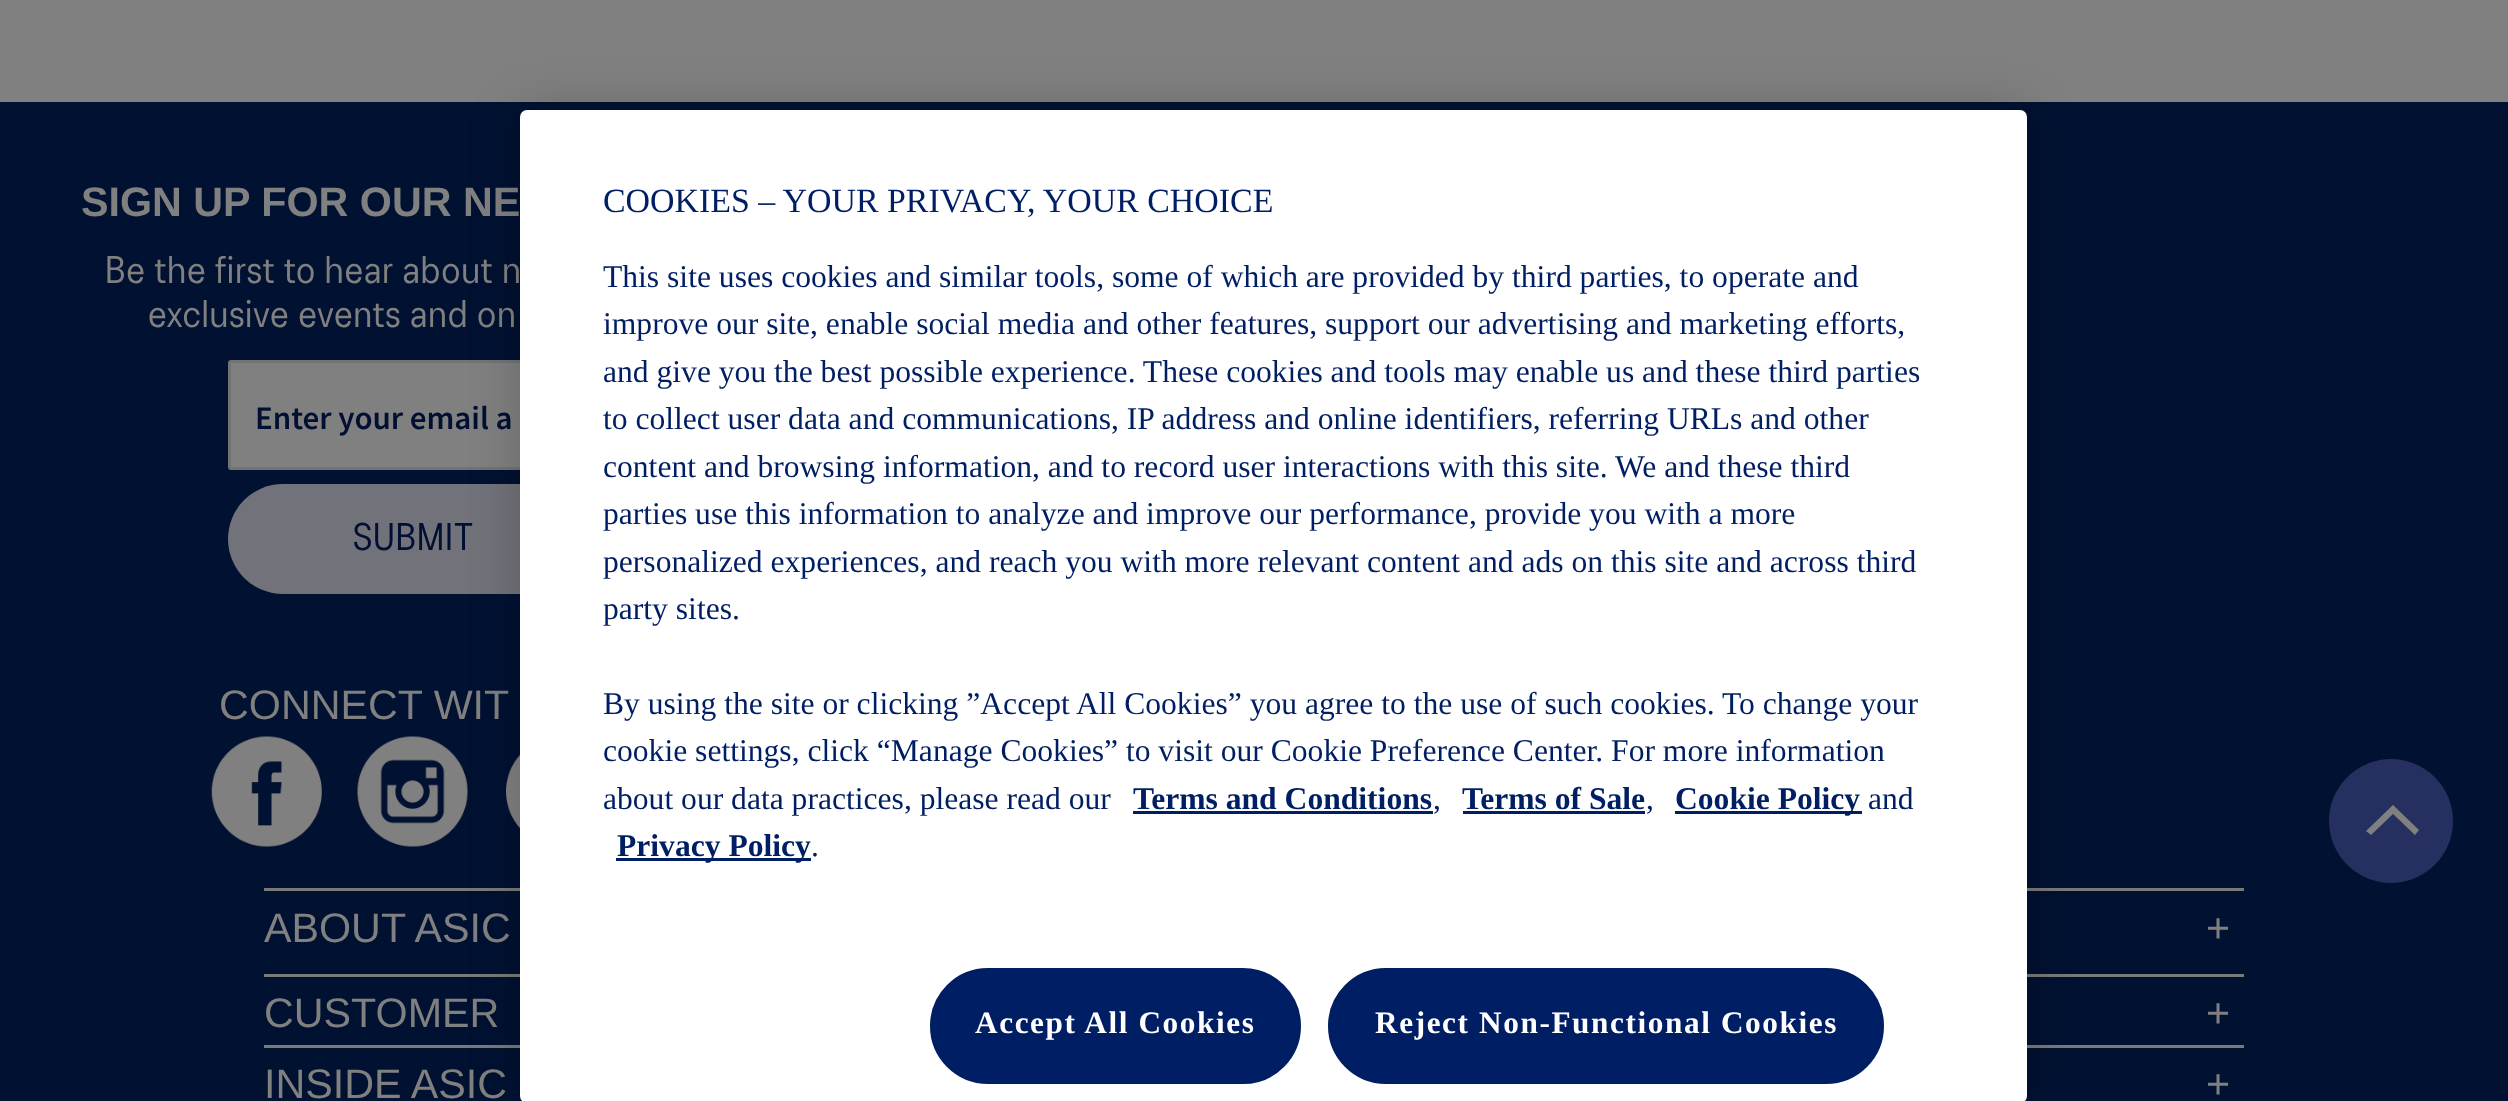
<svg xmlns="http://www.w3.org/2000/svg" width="2508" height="1101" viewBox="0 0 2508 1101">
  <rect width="100%" height="100%" fill="rgb(128,128,128)"/>
  <rect x="0" y="102" width="2508" height="999" fill="rgb(0,17,49)"/>
  <text x="81" y="216" font-family="Liberation Sans" font-size="41.25" font-weight="bold" fill="rgb(128,128,128)">SIGN UP FOR OUR NE</text>
  <g font-family="'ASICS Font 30'" font-size="38.5" letter-spacing="0.8" fill="rgb(128,128,128)">
    <text x="105" y="283">Be the first to hear about n</text>
    <text x="148" y="327">exclusive events and on</text>
  </g>
  <rect x="231" y="363" width="289" height="104" fill="rgb(128,128,128)"/>
  <rect x="229.5" y="361.5" width="369" height="107" rx="1.5" fill="none" stroke="rgb(114,115,115)" stroke-width="3"/>
  <text x="255" y="429" font-family="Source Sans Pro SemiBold" font-size="33" font-weight="600" fill="rgb(0,15,50)">Enter your email a</text>
  <rect x="228" y="484" width="372" height="110" rx="55" fill="rgb(114,115,122)"/>
  <text x="353" y="550" font-family="'ASICS Font 30'" font-size="38.5" letter-spacing="0.8" fill="rgb(0,15,50)">SUBMIT</text>
  <text x="219" y="719" font-family="Liberation Sans" font-size="41.25" fill="rgb(128,128,128)">CONNECT WIT</text>
  <image x="211" y="736" width="111" height="111" href="pic1.png"/>
  <image x="357" y="736" width="111" height="111" href="pic2.png"/>
  <image x="506" y="754" width="14" height="75" href="pic3.png"/>
  <rect x="264" y="888" width="1980" height="3" fill="rgb(121,121,121)"/>
  <g font-family="Liberation Sans" font-size="41.25" fill="rgb(128,128,128)">
    <text x="264" y="942">ABOUT ASIC</text>
    <text x="2206" y="942">+</text>
  </g>
  <rect x="264" y="974" width="1980" height="3" fill="rgb(121,121,121)"/>
  <g font-family="Liberation Sans" font-size="41.25" fill="rgb(128,128,128)">
    <text x="264" y="1027">CUSTOMER</text>
    <text x="2206" y="1027">+</text>
  </g>
  <rect x="264" y="1045" width="1980" height="3" fill="rgb(121,121,121)"/>
  <g font-family="Liberation Sans" font-size="41.25" fill="rgb(128,128,128)">
    <text x="264" y="1098">INSIDE ASIC</text>
    <text x="2206" y="1098">+</text>
  </g>
  <circle cx="2391" cy="821" r="62" fill="rgb(37,48,96)"/>
  <path d="M2393 814L2415 835L2419 830L2393 805L2366 831L2371 835Z" fill="rgb(128,128,128)"/>
  <rect x="520" y="110" width="1507" height="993" rx="7" fill="rgba(0,0,0,0.2)" filter="blur(25px)"/>
  <rect x="520" y="110" width="1507" height="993" rx="7" fill="rgb(255,255,255)"/>
  <text x="603" y="212" font-family="Liberation Serif" font-size="33.9" fill="rgb(0,30,99)">COOKIES – YOUR PRIVACY, YOUR CHOICE</text>
  <g font-family="Liberation Serif" font-size="31.6" fill="rgb(0,30,99)">
    <text>
      <tspan x="603" y="287">This site uses cookies and similar tools, some of which are provided by third parties, to operate and</tspan>
      <tspan x="603" y="334">improve our site, enable social media and other features, support our advertising and marketing efforts,</tspan>
      <tspan x="603" y="382">and give you the best possible experience. These cookies and tools may enable us and these third parties</tspan>
      <tspan x="603" y="429">to collect user data and communications, IP address and online identifiers, referring URLs and other</tspan>
      <tspan x="603" y="477">content and browsing information, and to record user interactions with this site. We and these third</tspan>
      <tspan x="603" y="524">parties use this information to analyze and improve our performance, provide you with a more</tspan>
      <tspan x="603" y="572">personalized experiences, and reach you with more relevant content and ads on this site and across third</tspan>
      <tspan x="603" y="619">party sites.</tspan>
    </text>
    <text>
      <tspan x="603" y="714">By using the site or clicking ”Accept All Cookies” you agree to the use of such cookies. To change your</tspan>
      <tspan x="603" y="761">cookie settings, click “Manage Cookies” to visit our Cookie Preference Center. For more information</tspan>
      <tspan x="603" y="809">about our data practices, please read our</tspan>
    </text>
  </g>
  <text x="1133" y="809" font-family="Liberation Serif" font-size="31.6" font-weight="bold" fill="rgb(0,30,99)">Terms and Conditions</text>
  <rect x="1133" y="811" width="300" height="3" fill="rgb(0,30,99)"/>
  <text x="1433" y="809" font-family="Liberation Serif" font-size="31.6" fill="rgb(0,30,99)">,</text>
  <text x="1462" y="809" font-family="Liberation Serif" font-size="31.6" font-weight="bold" fill="rgb(0,30,99)">Terms of Sale</text>
  <rect x="1463" y="811" width="182" height="3" fill="rgb(0,30,99)"/>
  <text x="1646" y="809" font-family="Liberation Serif" font-size="31.6" fill="rgb(0,30,99)">,</text>
  <rect x="1675" y="811" width="187" height="3" fill="rgb(0,30,99)"/>
  <text x="1675" y="809" font-family="Liberation Serif" font-size="31.6" font-weight="bold" fill="rgb(0,30,99)">Cookie Policy</text>
  <text x="1868" y="809" font-family="Liberation Serif" font-size="31.6" fill="rgb(0,30,99)">and</text>
  <rect x="616" y="858" width="195" height="3" fill="rgb(0,30,99)"/>
  <text x="617" y="856" font-family="Liberation Serif" font-size="31.6" font-weight="bold" fill="rgb(0,30,99)">Privacy Policy</text>
  <text x="811" y="856" font-family="Liberation Serif" font-size="31.6" fill="rgb(0,30,99)">.</text>
  <rect x="931.5" y="969.5" width="368" height="113" rx="56.5" fill="rgb(0,30,99)" stroke="rgb(0,30,99)" stroke-width="3"/>
  <text x="975" y="1033" font-family="Liberation Serif" font-size="31.25" font-weight="bold" letter-spacing="1.6" fill="rgb(255,255,255)">Accept All Cookies</text>
  <rect x="1329.5" y="969.5" width="553" height="113" rx="56.5" fill="rgb(0,30,99)" stroke="rgb(0,30,99)" stroke-width="3"/>
  <text x="1375" y="1033" font-family="Liberation Serif" font-size="31.25" font-weight="bold" letter-spacing="1.6" fill="rgb(255,255,255)">Reject Non-Functional Cookies</text>
</svg>
